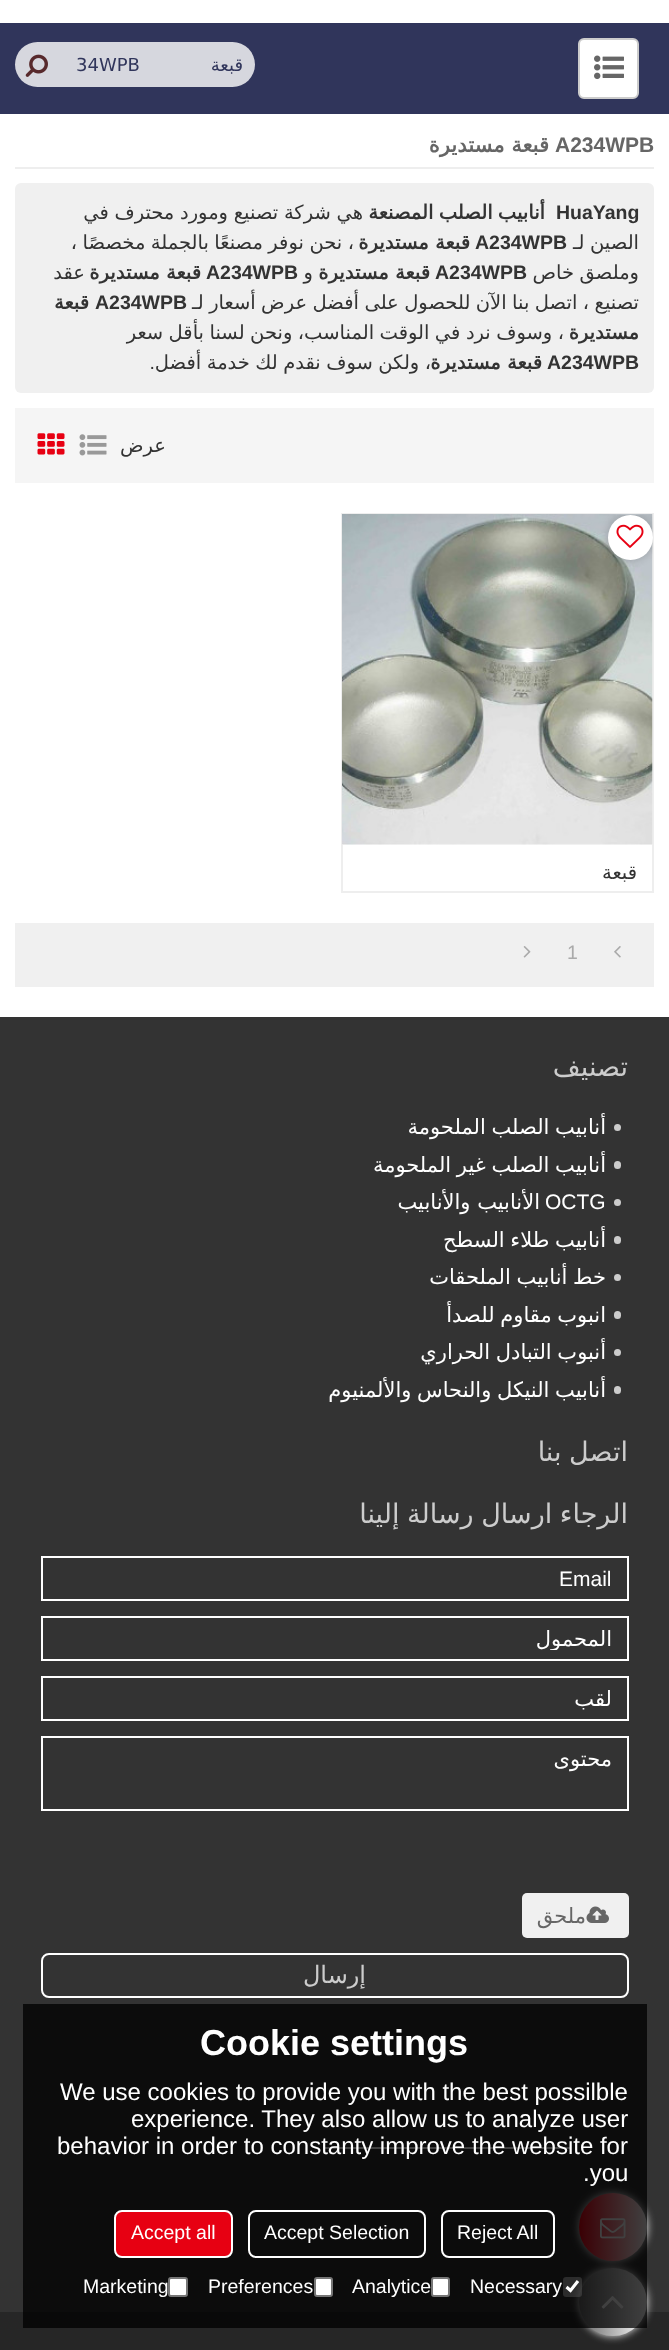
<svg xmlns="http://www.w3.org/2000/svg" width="669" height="2350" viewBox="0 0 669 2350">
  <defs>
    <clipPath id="clip1"><rect x="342" y="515" width="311" height="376"/></clipPath>
    <clipPath id="clip2"><rect x="360" y="1494" width="269" height="39"/></clipPath>
    <clipPath id="clip3"><rect x="57" y="1626" width="555" height="24"/></clipPath>
    <linearGradient id="g1" gradientUnits="userSpaceOnUse" x1="579" y1="2227" x2="647" y2="2227"><stop offset="0" stop-color="rgb(231,0,18)"/><stop offset="1" stop-color="rgb(255,255,255)"/></linearGradient>
    <linearGradient id="g2" gradientUnits="userSpaceOnUse" x1="579" y1="2302" x2="647" y2="2302"><stop offset="0" stop-color="rgb(102,102,102)"/><stop offset="1" stop-color="rgb(255,255,255)"/></linearGradient>
  </defs>
  <rect width="100%" height="100%" fill="rgb(255,255,255)"/>
  <rect x="0" y="23" width="669" height="91" fill="rgb(48,53,91)"/>
  <rect x="579" y="39" width="59" height="59" rx="5" fill="rgb(255,255,255)" stroke="rgb(204,204,204)" stroke-width="2"/>
  <image x="594" y="55" width="30" height="25" href="pic1.png"/>
  <rect x="15" y="42" width="240" height="45" rx="22.5" fill="rgb(214,215,222)"/>
  <text x="243" y="71" font-family="DejaVu Sans" font-size="18" direction="rtl" fill="rgb(48,53,91)">قبعة</text>
  <text x="76" y="71" font-family="DejaVu Sans" font-size="18" fill="rgb(48,53,91)">34WPB</text>
  <image x="25" y="54" width="23" height="23" href="pic2.png"/>
  <rect x="15" y="167" width="639" height="2" fill="rgb(238,238,238)"/>
  <text x="555" y="152" font-family="Liberation Sans" font-size="21" font-weight="bold" fill="rgb(102,102,102)">A234WPB</text>
  <text x="549" y="152" font-family="DejaVu Sans" font-size="21" font-weight="bold" direction="rtl" fill="rgb(102,102,102)">قبعة مستديرة</text>
  <rect x="15" y="183" width="639" height="210" rx="6" fill="rgb(240,240,240)"/>
  <text x="556" y="219" font-family="Liberation Sans" font-size="19.5" font-weight="bold" fill="rgb(51,51,51)">HuaYang</text>
  <text x="545" y="219" word-spacing="-1" font-family="DejaVu Sans" font-size="19.5" font-weight="bold" direction="rtl" fill="rgb(51,51,51)">أنابيب الصلب المصنعة</text>
  <g font-family="DejaVu Sans" font-size="19.5" direction="rtl" fill="rgb(51,51,51)">
    <text x="363" y="219" word-spacing="-0.5">هي شركة تصنيع ومورد محترف في</text>
    <text x="639" y="249" word-spacing="-0.75">الصين لـ</text>
  </g>
  <text x="475" y="249" font-family="Liberation Sans" font-size="19.5" font-weight="bold" fill="rgb(51,51,51)">A234WPB</text>
  <text x="470" y="249" font-family="DejaVu Sans" font-size="19.5" font-weight="bold" direction="rtl" fill="rgb(51,51,51)">قبعة مستديرة</text>
  <g font-family="DejaVu Sans" font-size="19.5" direction="rtl" fill="rgb(51,51,51)">
    <text x="354" y="249" word-spacing="-0.75">، نحن نوفر مصنعًا بالجملة مخصصًا ،</text>
    <text x="639" y="279" word-spacing="-0.75">وملصق خاص</text>
  </g>
  <text x="435" y="279" font-family="Liberation Sans" font-size="19.5" font-weight="bold" fill="rgb(51,51,51)">A234WPB</text>
  <text x="430" y="279" font-family="DejaVu Sans" font-size="19.5" font-weight="bold" direction="rtl" fill="rgb(51,51,51)">قبعة مستديرة</text>
  <text x="313" y="279" font-family="DejaVu Sans" font-size="19.5" direction="rtl" fill="rgb(51,51,51)">و</text>
  <text x="206" y="279" font-family="Liberation Sans" font-size="19.5" font-weight="bold" fill="rgb(51,51,51)">A234WPB</text>
  <text x="201" y="279" font-family="DejaVu Sans" font-size="19.5" font-weight="bold" direction="rtl" fill="rgb(51,51,51)">قبعة مستديرة</text>
  <g font-family="DejaVu Sans" font-size="19.5" direction="rtl" fill="rgb(51,51,51)">
    <text x="85" y="279">عقد</text>
    <text x="639" y="309" word-spacing="-0.75">تصنيع ، اتصل بنا الآن للحصول على أفضل عرض أسعار لـ</text>
  </g>
  <text x="95" y="309" font-family="Liberation Sans" font-size="19.5" font-weight="bold" fill="rgb(51,51,51)">A234WPB</text>
  <g font-family="DejaVu Sans" font-size="19.5" font-weight="bold" direction="rtl" fill="rgb(51,51,51)">
    <text x="89" y="309">قبعة</text>
    <text x="639" y="339">مستديرة</text>
  </g>
  <text x="564" y="339" word-spacing="-0.75" font-family="DejaVu Sans" font-size="19.5" direction="rtl" fill="rgb(51,51,51)">، وسوف نرد في الوقت المناسب، ونحن لسنا بأقل سعر</text>
  <text x="547" y="369" font-family="Liberation Sans" font-size="19.5" font-weight="bold" fill="rgb(51,51,51)">A234WPB</text>
  <text x="542" y="369" font-family="DejaVu Sans" font-size="19.5" font-weight="bold" direction="rtl" fill="rgb(51,51,51)">قبعة مستديرة</text>
  <text x="431" y="369" word-spacing="-0.75" font-family="DejaVu Sans" font-size="19.5" direction="rtl" fill="rgb(51,51,51)">، ولكن سوف نقدم لك خدمة أفضل</text>
  <text x="155" y="369" font-family="Liberation Sans" font-size="19.5" direction="rtl" fill="rgb(51,51,51)">.</text>
  <rect x="15" y="408" width="639" height="75" fill="rgb(245,245,245)"/>
  <text x="166" y="452" font-family="DejaVu Sans" font-size="19.5" direction="rtl" fill="rgb(51,51,51)">عرض</text>
  <image x="79" y="434" width="28" height="22" href="pic3.png"/>
  <image x="37" y="433" width="28" height="22" href="pic4.png"/>
  <rect x="342" y="514" width="311" height="378" fill="none" stroke="rgb(238,238,238)" stroke-width="2"/>
  <image x="342" y="514" width="311" height="331" href="pic6.png"/>
  <g clip-path="url(#clip1)">
    <rect x="608" y="515" width="45" height="45" rx="22.5" fill="rgba(0,0,0,0.2)" filter="blur(4px)"/>
  </g>
  <circle cx="630.5" cy="537.5" r="22.5" fill="rgb(255,255,255)"/>
  <image x="616" y="524" width="28" height="24" href="pic5.png"/>
  <text x="637" y="879" font-family="DejaVu Sans" font-size="19.5" direction="rtl" fill="rgb(51,51,51)">قبعة</text>
  <rect x="15" y="923" width="639" height="64" fill="rgb(240,240,240)"/>
  <image x="614" y="946" width="7" height="12" href="pic7.png"/>
  <text x="567" y="959" font-family="Liberation Sans" font-size="19.5" fill="rgb(170,170,170)">1</text>
  <image x="523" y="946" width="8" height="12" href="pic8.png"/>
  <rect x="0" y="1017" width="669" height="1295" fill="rgb(51,51,51)"/>
  <text x="628" y="1076" font-family="DejaVu Sans" font-size="27" direction="rtl" fill="rgb(204,204,204)">تصنيف</text>
  <circle cx="617.5" cy="1127.5" r="3.5" fill="rgb(204,204,204)"/>
  <text x="606" y="1134" word-spacing="-1" font-family="DejaVu Sans" font-size="21" direction="rtl" fill="rgb(255,255,255)">أنابيب الصلب الملحومة</text>
  <rect x="614" y="1161" width="7" height="8" rx="3.5" fill="rgb(204,204,204)"/>
  <text x="606" y="1172" word-spacing="-1" font-family="DejaVu Sans" font-size="21" direction="rtl" fill="rgb(255,255,255)">أنابيب الصلب غير الملحومة</text>
  <circle cx="617.5" cy="1202.5" r="3.5" fill="rgb(204,204,204)"/>
  <text x="545" y="1209" font-family="Liberation Sans" font-size="21" fill="rgb(255,255,255)">OCTG</text>
  <text x="540" y="1209" font-family="DejaVu Sans" font-size="21" direction="rtl" fill="rgb(255,255,255)">الأنابيب والأنابيب</text>
  <rect x="614" y="1236" width="7" height="8" rx="3.5" fill="rgb(204,204,204)"/>
  <text x="606" y="1247" word-spacing="-1" font-family="DejaVu Sans" font-size="21" direction="rtl" fill="rgb(255,255,255)">أنابيب طلاء السطح</text>
  <circle cx="617.5" cy="1277.5" r="3.5" fill="rgb(204,204,204)"/>
  <text x="606" y="1284" word-spacing="-1" font-family="DejaVu Sans" font-size="21" direction="rtl" fill="rgb(255,255,255)">خط أنابيب الملحقات</text>
  <rect x="614" y="1311" width="7" height="8" rx="3.5" fill="rgb(204,204,204)"/>
  <text x="606" y="1322" word-spacing="-1" font-family="DejaVu Sans" font-size="21" direction="rtl" fill="rgb(255,255,255)">انبوب مقاوم للصدأ</text>
  <circle cx="617.5" cy="1352.5" r="3.5" fill="rgb(204,204,204)"/>
  <text x="606" y="1359" word-spacing="-1" font-family="DejaVu Sans" font-size="21" direction="rtl" fill="rgb(255,255,255)">أنبوب التبادل الحراري</text>
  <rect x="614" y="1386" width="7" height="8" rx="3.5" fill="rgb(204,204,204)"/>
  <text x="606" y="1397" word-spacing="-1" font-family="DejaVu Sans" font-size="21" direction="rtl" fill="rgb(255,255,255)">أنابيب النيكل والنحاس والألمنيوم</text>
  <text x="628" y="1461" word-spacing="-1" font-family="DejaVu Sans" font-size="27" direction="rtl" fill="rgb(204,204,204)">اتصل بنا</text>
  <g clip-path="url(#clip2)">
    <text x="628" y="1523" word-spacing="-1" font-family="DejaVu Sans" font-size="27" direction="rtl" fill="rgb(204,204,204)">الرجاء ارسال رسالة إلينا</text>
  </g>
  <rect x="42" y="1557" width="586" height="43" fill="none" stroke="rgb(255,255,255)" stroke-width="2"/>
  <text x="559" y="1586" font-family="Liberation Sans" font-size="21" fill="rgb(255,255,255)">Email</text>
  <rect x="42" y="1617" width="586" height="43" fill="none" stroke="rgb(255,255,255)" stroke-width="2"/>
  <g clip-path="url(#clip3)">
    <text x="612" y="1646" font-family="DejaVu Sans" font-size="21" direction="rtl" fill="rgb(255,255,255)">المحمول</text>
  </g>
  <rect x="42" y="1677" width="586" height="43" fill="none" stroke="rgb(255,255,255)" stroke-width="2"/>
  <text x="612" y="1706" font-family="DejaVu Sans" font-size="21" direction="rtl" fill="rgb(255,255,255)">لقب</text>
  <rect x="42" y="1737" width="586" height="73" fill="none" stroke="rgb(255,255,255)" stroke-width="2"/>
  <text x="612" y="1766" font-family="DejaVu Sans" font-size="21" direction="rtl" fill="rgb(255,255,255)">محتوى</text>
  <rect x="522" y="1893" width="107" height="45" rx="5" fill="rgb(240,240,240)"/>
  <image x="586" y="1906" width="23" height="17" href="pic9.png"/>
  <text x="586" y="1923" font-family="DejaVu Sans" font-size="21" direction="rtl" fill="rgb(102,102,102)">ملحق</text>
  <rect x="42" y="1954" width="586" height="43" rx="7" fill="none" stroke="rgb(255,255,255)" stroke-width="2"/>
  <text x="366" y="1983" font-family="DejaVu Sans" font-size="24" direction="rtl" fill="rgb(204,204,204)">إرسال</text>
  <rect x="324" y="2147" width="246" height="2" fill="rgb(255,255,255)"/>
  <rect x="0" y="2312" width="669" height="38" fill="rgb(38,38,38)"/>
  <rect x="579" y="2193" width="68" height="68" rx="34" fill="rgb(238,238,238)" filter="blur(4px)"/>
  <circle cx="613" cy="2227" r="34" fill="url(#g1)"/>
  <image x="600" y="2218" width="26" height="21" href="pic10.png"/>
  <rect x="579" y="2268" width="68" height="68" rx="34" fill="rgb(238,238,238)" filter="blur(4px)"/>
  <circle cx="613" cy="2302" r="34" fill="url(#g2)"/>
  <image x="601" y="2296" width="23" height="13" href="pic11.png"/>
  <rect x="23" y="2004" width="624" height="324" fill="rgba(0,0,0,0.75)"/>
  <text x="200" y="2055" font-family="Liberation Sans" font-size="36" font-weight="bold" fill="rgb(255,255,255)">Cookie settings</text>
  <g font-family="Liberation Sans" font-size="24" fill="rgb(255,255,255)">
    <text x="60" y="2100">We use cookies to provide you with the best possilble</text>
    <text x="131" y="2127">experience. They also allow us to analyze user</text>
    <text x="57" y="2154">behavior in order to constanty improve the website for</text>
    <text x="583" y="2181">.you</text>
  </g>
  <rect x="442" y="2211" width="112" height="46" rx="7" fill="none" stroke="rgb(255,255,255)" stroke-width="2"/>
  <text x="457" y="2239" font-family="Liberation Sans" font-size="19.5" fill="rgb(255,255,255)">Reject All</text>
  <rect x="249" y="2211" width="176" height="46" rx="7" fill="none" stroke="rgb(255,255,255)" stroke-width="2"/>
  <text x="264" y="2239" font-family="Liberation Sans" font-size="19.5" fill="rgb(255,255,255)">Accept Selection</text>
  <rect x="115" y="2211" width="117" height="46" rx="7" fill="rgb(231,0,18)" stroke="rgb(255,255,255)" stroke-width="2"/>
  <text x="131" y="2239" font-family="Liberation Sans" font-size="19.5" fill="rgb(255,255,255)">Accept all</text>
  <rect x="563" y="2277" width="19" height="20" rx="3" fill="rgba(118,118,118,0.3)"/>
  <path d="M566.5 2287L570.5 2290.5L578 2281" fill="none" stroke="rgb(255,255,255)" stroke-width="3.1"/>
  <text x="470" y="2293" font-family="Liberation Sans" font-size="19.5" fill="rgb(255,255,255)">Necessary</text>
  <rect x="432" y="2278" width="17" height="18" rx="2" fill="rgb(255,255,255)" stroke="rgb(118,118,118)" stroke-width="2"/>
  <text x="352" y="2293" font-family="Liberation Sans" font-size="19.5" fill="rgb(255,255,255)">Analytice</text>
  <rect x="315" y="2278" width="17" height="18" rx="2" fill="rgb(255,255,255)" stroke="rgb(118,118,118)" stroke-width="2"/>
  <text x="208" y="2293" font-family="Liberation Sans" font-size="19.5" fill="rgb(255,255,255)">Preferences</text>
  <rect x="169" y="2278" width="18" height="18" rx="2" fill="rgb(255,255,255)" stroke="rgb(118,118,118)" stroke-width="2"/>
  <text x="83" y="2293" font-family="Liberation Sans" font-size="19.5" fill="rgb(255,255,255)">Marketing</text>
</svg>
